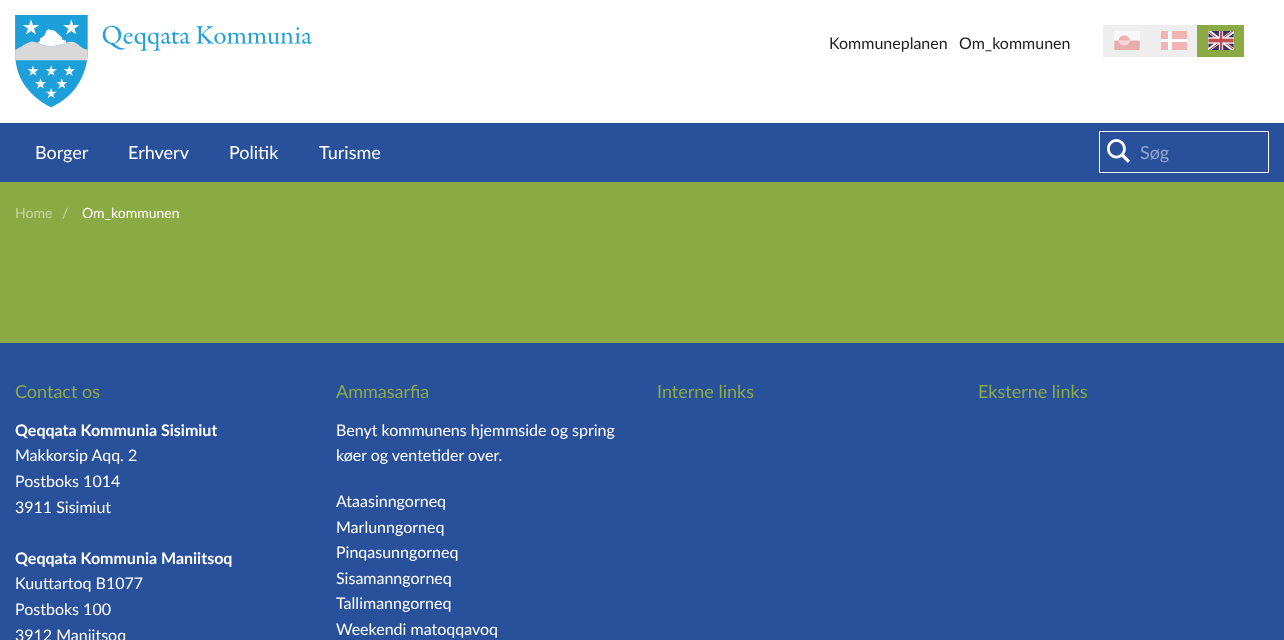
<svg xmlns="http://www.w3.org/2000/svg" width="1284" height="640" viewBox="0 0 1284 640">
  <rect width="100%" height="100%" fill="rgb(255,255,255)"/>
  <image x="15" y="15" width="297" height="92" href="pic1.png"/>
  <g font-family="Lato" font-size="16" fill="rgb(34,34,34)">
    <text x="829" y="49">Kommuneplanen</text>
    <text x="959" y="49">Om_kommunen</text>
  </g>
  <rect x="1103" y="25" width="94" height="32" fill="rgb(238,238,238)"/>
  <rect x="1161" y="31" width="26" height="19" fill="rgb(255,255,255)"/>
  <rect x="1161" y="31" width="7" height="8" fill="rgb(241,180,180)"/>
  <rect x="1161" y="42" width="7" height="8" fill="rgb(241,180,180)"/>
  <rect x="1172" y="31" width="15" height="8" fill="rgb(241,180,180)"/>
  <rect x="1172" y="42" width="15" height="8" fill="rgb(241,180,180)"/>
  <rect x="1197" y="25" width="47" height="32" fill="rgb(140,170,68)"/>
  <image x="1208" y="31" width="26" height="20" href="pic2.png"/>
  <image x="1114" y="31" width="26" height="20" href="pic3.png"/>
  <rect x="0" y="123" width="1284" height="59" fill="rgb(40,80,155)"/>
  <g font-family="Lato" font-size="18" fill="rgb(255,255,255)">
    <text x="35" y="159">Borger</text>
    <text x="128" y="159">Erhverv</text>
    <text x="229" y="159">Politik</text>
    <text x="319" y="159">Turisme</text>
  </g>
  <image x="1107" y="139" width="23" height="24" href="pic4.png"/>
  <rect x="1099.5" y="131.5" width="169" height="41" fill="none" stroke="rgb(255,255,255)"/>
  <text x="1140" y="159" font-family="Lato" font-size="18" fill="rgb(148,168,205)">Søg</text>
  <rect x="0" y="182" width="1284" height="161" fill="rgb(140,170,68)"/>
  <g font-family="Lato" font-size="14" fill="rgb(198,213,162)">
    <text x="15" y="218">Home</text>
    <text x="62" y="218">/</text>
  </g>
  <text x="82" y="218" font-family="Lato" font-size="14" fill="rgb(255,255,255)">Om_kommunen</text>
  <rect x="0" y="343" width="1284" height="297" fill="rgb(40,80,155)"/>
  <text x="15" y="398" font-family="Lato" font-size="18" fill="rgb(140,170,68)">Contact os</text>
  <text x="15" y="436" font-family="Lato" font-size="16" font-weight="bold" fill="rgb(255,255,255)">Qeqqata Kommunia Sisimiut</text>
  <g font-family="Lato" font-size="16" fill="rgb(255,255,255)">
    <text>
      <tspan x="15" y="461">Makkorsip Aqq. 2</tspan>
      <tspan x="15" y="487">Postboks 1014</tspan>
      <tspan x="15" y="513">3911 Sisimiut</tspan>
    </text>
  </g>
  <text x="15" y="564" font-family="Lato" font-size="16" font-weight="bold" fill="rgb(255,255,255)">Qeqqata Kommunia Maniitsoq</text>
  <g font-family="Lato" font-size="16" fill="rgb(255,255,255)">
    <text>
      <tspan x="15" y="589">Kuuttartoq B1077</tspan>
      <tspan x="15" y="615">Postboks 100</tspan>
      <tspan x="15" y="641">3912 Maniitsoq</tspan>
    </text>
  </g>
  <text x="336" y="398" font-family="Lato" font-size="18" fill="rgb(140,170,68)">Ammasarfia</text>
  <g font-family="Lato" font-size="16" fill="rgb(255,255,255)">
    <text>
      <tspan x="336" y="436">Benyt kommunens hjemmside og spring</tspan>
      <tspan x="336" y="461">køer og ventetider over.</tspan>
    </text>
    <text>
      <tspan x="336" y="507">Ataasinngorneq</tspan>
      <tspan x="336" y="533">Marlunngorneq</tspan>
      <tspan x="336" y="558">Pinqasunngorneq</tspan>
      <tspan x="336" y="584">Sisamanngorneq</tspan>
      <tspan x="336" y="609">Tallimanngorneq</tspan>
      <tspan x="336" y="635">Weekendi matoqqavoq</tspan>
    </text>
  </g>
  <g font-family="Lato" font-size="18" fill="rgb(140,170,68)">
    <text x="657" y="398">Interne links</text>
    <text x="978" y="398">Eksterne links</text>
  </g>
</svg>
